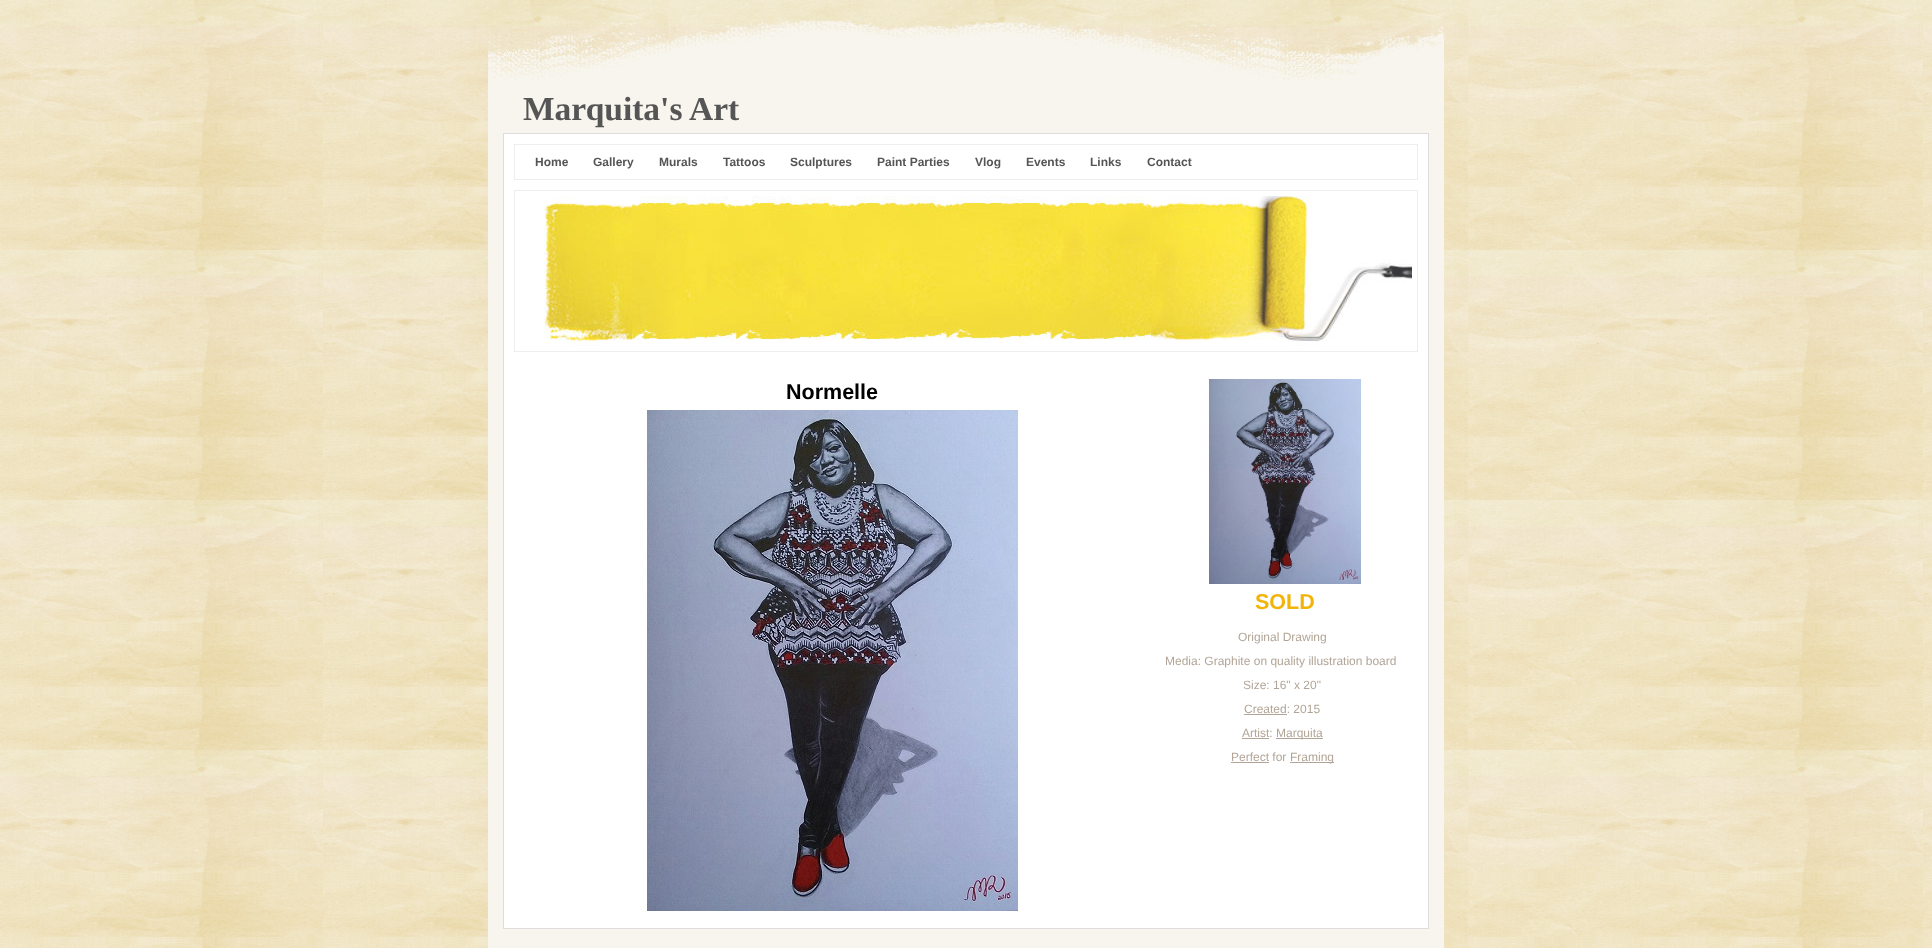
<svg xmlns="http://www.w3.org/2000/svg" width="1932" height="948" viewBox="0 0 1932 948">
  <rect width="100%" height="100%" fill="rgb(255,255,255)"/>
  <image x="0" y="0" width="1932" height="948" href="pic1.png"/>
  <image x="488" y="20" width="956" height="60" href="pic2.png"/>
  <rect x="488" y="80" width="956" height="868" fill="rgb(247,245,237)"/>
  <text x="523" y="120" font-family="Liberation Serif" font-size="33.5" font-weight="bold" fill="rgb(85,85,85)">Marquita's Art</text>
  <rect x="503.5" y="133.5" width="925" height="795" fill="rgb(255,255,255)" stroke="rgb(221,221,221)"/>
  <rect x="514.5" y="144.5" width="903" height="35" fill="none" stroke="rgb(238,238,238)"/>
  <g font-family="Liberation Sans" font-size="12" font-weight="bold" fill="rgb(85,85,85)">
    <text x="535" y="166">Home</text>
    <text x="593" y="166">Gallery</text>
    <text x="659" y="166">Murals</text>
    <text x="723" y="166">Tattoos</text>
    <text x="790" y="166">Sculptures</text>
    <text x="877" y="166">Paint Parties</text>
    <text x="975" y="166">Vlog</text>
    <text x="1026" y="166">Events</text>
    <text x="1090" y="166">Links</text>
    <text x="1147" y="166">Contact</text>
  </g>
  <rect x="514.5" y="190.5" width="903" height="161" fill="none" stroke="rgb(238,238,238)"/>
  <image x="544" y="196" width="868" height="150" href="pic3.png"/>
  <text x="786" y="399" font-family="Liberation Sans" font-size="21.5" font-weight="bold" fill="rgb(0,0,0)">Normelle</text>
  <image x="647" y="410" width="371" height="501" href="pic4.png"/>
  <image x="1209" y="379" width="152" height="205" href="pic5.png"/>
  <text x="1255" y="609" font-family="Liberation Sans" font-size="21.5" font-weight="bold" fill="rgb(242,180,9)">SOLD</text>
  <g font-family="Liberation Sans" font-size="12" fill="rgb(178,165,151)">
    <text x="1238" y="641">Original Drawing</text>
    <text x="1165" y="665">Media: Graphite on quality illustration board</text>
    <text x="1243" y="689">Size: 16" x 20"</text>
    <text x="1244" y="713">Created: 2015</text>
  </g>
  <rect x="1244" y="714" width="43" height="1" fill="rgb(178,165,151)"/>
  <text x="1242" y="737" font-family="Liberation Sans" font-size="12" fill="rgb(178,165,151)">Artist:</text>
  <rect x="1242" y="738" width="27" height="1" fill="rgb(178,165,151)"/>
  <rect x="1276" y="738" width="47" height="1" fill="rgb(178,165,151)"/>
  <g font-family="Liberation Sans" font-size="12" fill="rgb(178,165,151)">
    <text x="1276" y="737">Marquita</text>
    <text x="1231" y="761">Perfect for</text>
  </g>
  <rect x="1231" y="762" width="38" height="1" fill="rgb(178,165,151)"/>
  <rect x="1290" y="762" width="44" height="1" fill="rgb(178,165,151)"/>
  <text x="1290" y="761" font-family="Liberation Sans" font-size="12" fill="rgb(178,165,151)">Framing</text>
</svg>
